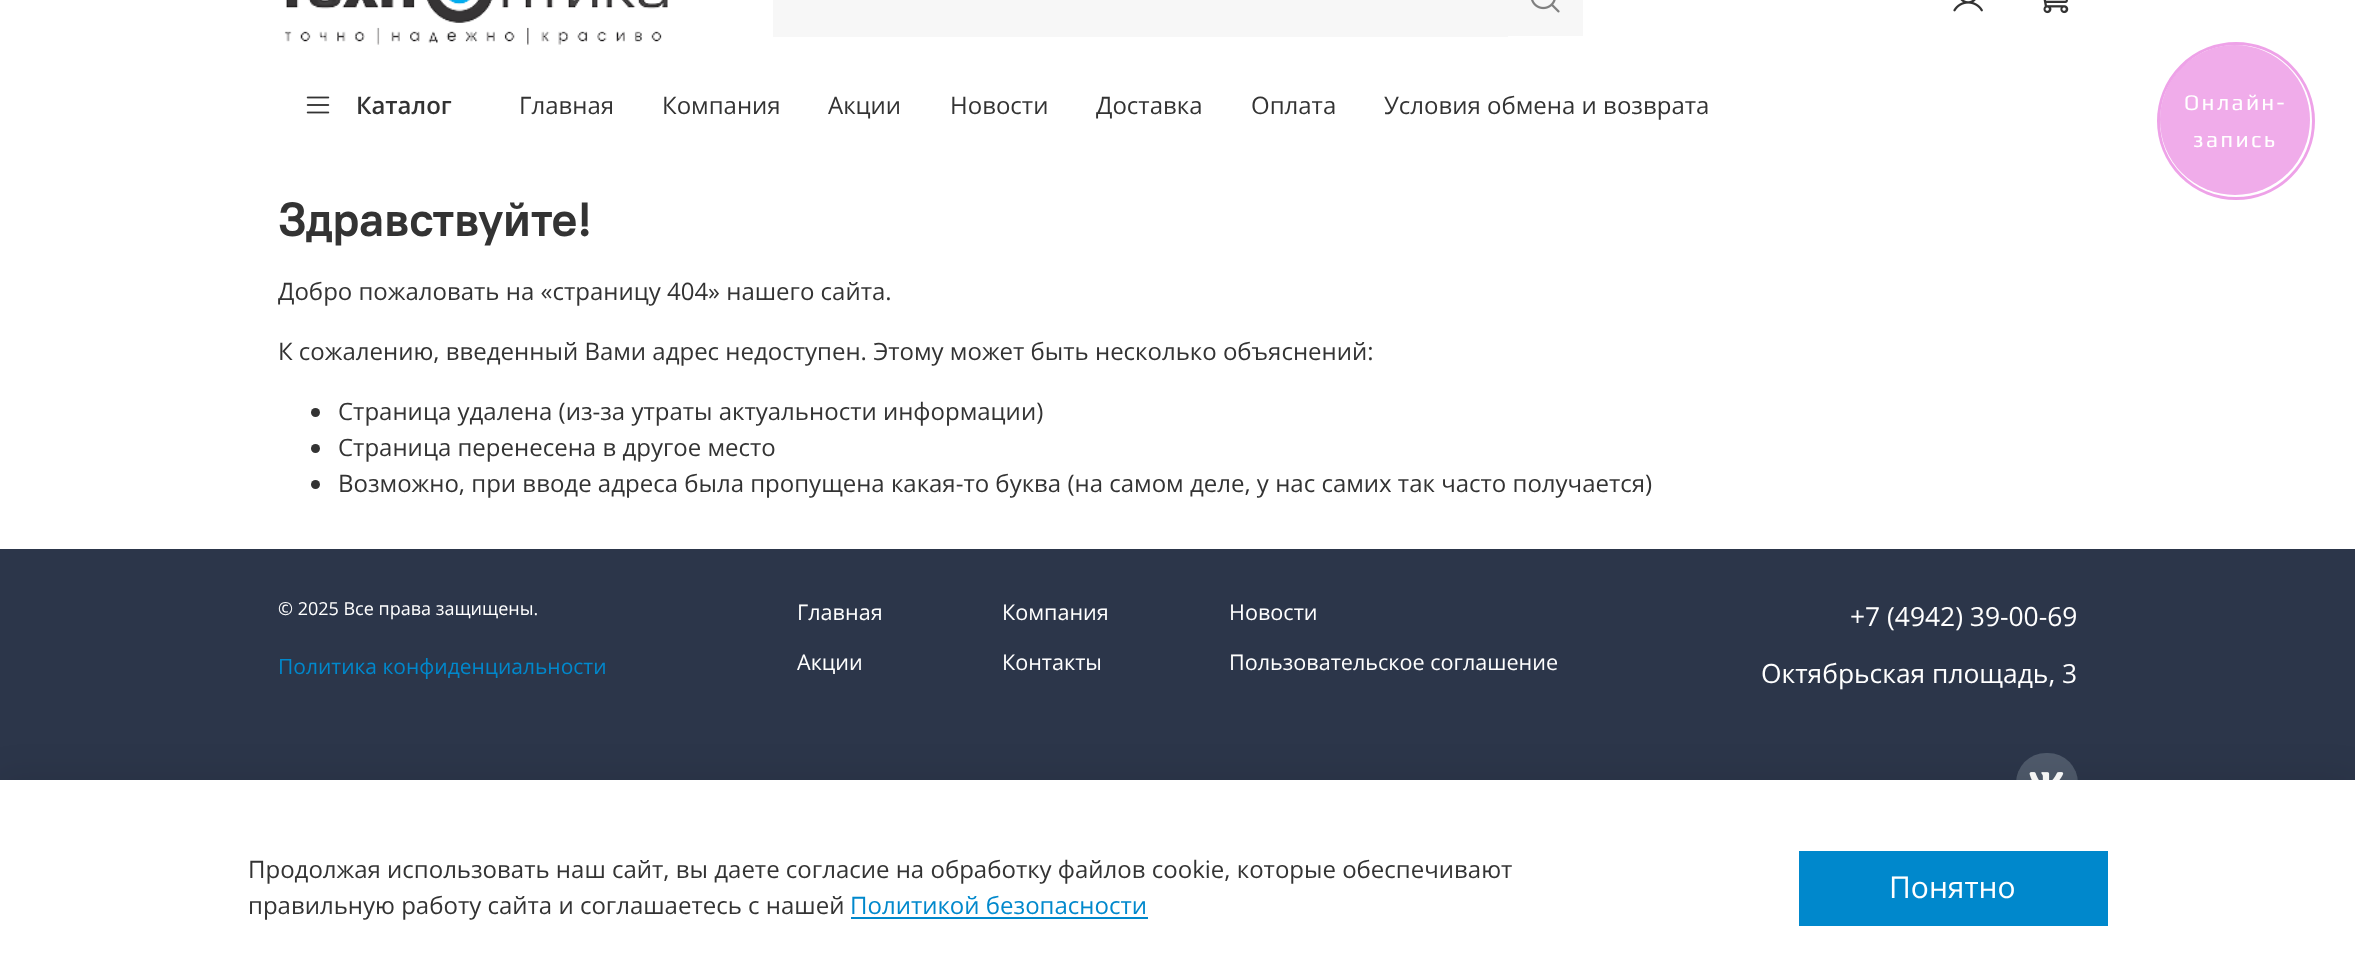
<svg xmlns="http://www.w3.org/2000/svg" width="2355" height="972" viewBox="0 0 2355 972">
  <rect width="100%" height="100%" fill="rgb(255,255,255)"/>
  <image x="284" y="0" width="384" height="45" href="pic1.png"/>
  <rect x="773" y="0" width="735" height="37" fill="rgb(247,247,247)"/>
  <rect x="1508" y="0" width="75" height="36" fill="rgb(247,247,247)"/>
  <image x="1531" y="0" width="29" height="13" href="pic2.png"/>
  <image x="1953" y="0" width="30" height="12" href="pic3.png"/>
  <image x="2043" y="0" width="26" height="14" href="pic4.png"/>
  <image x="306" y="96" width="24" height="18" href="pic5.png"/>
  <text x="356" y="114" font-family="Open Sans" font-size="24" font-weight="600" fill="rgb(51,51,51)">Каталог</text>
  <g font-family="Open Sans" font-size="24" fill="rgb(51,51,51)">
    <text x="519" y="114">Главная</text>
    <text x="662" y="114">Компания</text>
    <text x="828" y="114">Акции</text>
    <text x="950" y="114">Новости</text>
    <text x="1096" y="114">Доставка</text>
    <text x="1251" y="114">Оплата</text>
    <text x="1384" y="114">Условия обмена и возврата</text>
  </g>
  <text x="278" y="236" font-family="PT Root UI" font-size="48" font-weight="bold" fill="rgb(51,51,51)">Здравствуйте!</text>
  <g font-family="Open Sans" font-size="24" fill="rgb(51,51,51)">
    <text x="278" y="300">Добро пожаловать на «страницу 404» нашего сайта.</text>
    <text x="278" y="360">К сожалению, введенный Вами адрес недоступен. Этому может быть несколько объяснений:</text>
  </g>
  <circle cx="315.5" cy="412.5" r="4.5" fill="rgb(51,51,51)"/>
  <text x="338" y="420" font-family="Open Sans" font-size="24" fill="rgb(51,51,51)">Страница удалена (из-за утраты актуальности информации)</text>
  <circle cx="315.5" cy="448.5" r="4.5" fill="rgb(51,51,51)"/>
  <text x="338" y="456" font-family="Open Sans" font-size="24" fill="rgb(51,51,51)">Страница перенесена в другое место</text>
  <circle cx="315.5" cy="484.5" r="4.5" fill="rgb(51,51,51)"/>
  <text x="338" y="492" font-family="Open Sans" font-size="24" fill="rgb(51,51,51)">Возможно, при вводе адреса была пропущена какая-то буква (на самом деле, у нас самих так часто получается)</text>
  <rect x="0" y="549" width="2355" height="231" fill="rgb(44,54,74)"/>
  <text x="278" y="615" font-family="Open Sans" font-size="18" fill="rgb(255,255,255)">© 2025 Все права защищены.</text>
  <text x="278" y="674" font-family="Open Sans" font-size="21" fill="rgb(0,136,204)">Политика конфиденциальности</text>
  <g font-family="Open Sans" font-size="21.6" fill="rgb(255,255,255)">
    <text x="797" y="620">Главная</text>
    <text x="797" y="670">Акции</text>
    <text x="1002" y="620">Компания</text>
    <text x="1002" y="670">Контакты</text>
    <text x="1229" y="620">Новости</text>
    <text x="1229" y="670">Пользовательское соглашение</text>
  </g>
  <g font-family="Open Sans" font-size="26.4" fill="rgb(255,255,255)">
    <text x="1850" y="626">+7 (4942) 39-00-69</text>
    <text x="1761" y="683">Октябрьская площадь, 3</text>
  </g>
  <rect x="2016" y="753" width="62" height="60" rx="30" fill="rgb(79,90,107)"/>
  <image x="2029" y="772" width="35" height="8" href="pic6.png"/>
  <circle cx="2235" cy="120" r="75" fill="rgb(240,172,234)"/>
  <circle cx="2236" cy="121" r="77.5" fill="none" stroke="rgba(236,152,229,0.9)" stroke-width="3"/>
  <g font-family="Play" font-size="22.5" letter-spacing="2.25" fill="rgb(255,255,255)">
    <text x="2184" y="110">Онлайн-</text>
    <text x="2193" y="147">запись</text>
  </g>
  <rect x="-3" y="776" width="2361" height="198" fill="rgba(0,0,0,0.09)" filter="blur(17px)"/>
  <rect x="0" y="780" width="2355" height="192" fill="rgb(255,255,255)"/>
  <g font-family="Open Sans" font-size="24" fill="rgb(51,51,51)">
    <text>
      <tspan x="248" y="878">Продолжая использовать наш сайт, вы даете согласие на обработку файлов cookie, которые обеспечивают</tspan>
      <tspan x="248" y="914">правильную работу сайта и соглашаетесь с нашей</tspan>
    </text>
  </g>
  <text x="850" y="914" font-family="Open Sans" font-size="24" fill="rgb(0,136,204)">Политикой безопасности</text>
  <rect x="851" y="917" width="297" height="2" fill="rgb(0,136,204)"/>
  <rect x="1799" y="851" width="309" height="75" fill="rgb(0,136,204)"/>
  <text x="1889" y="898" font-family="Open Sans" font-size="30" fill="rgb(255,255,255)">Понятно</text>
</svg>
